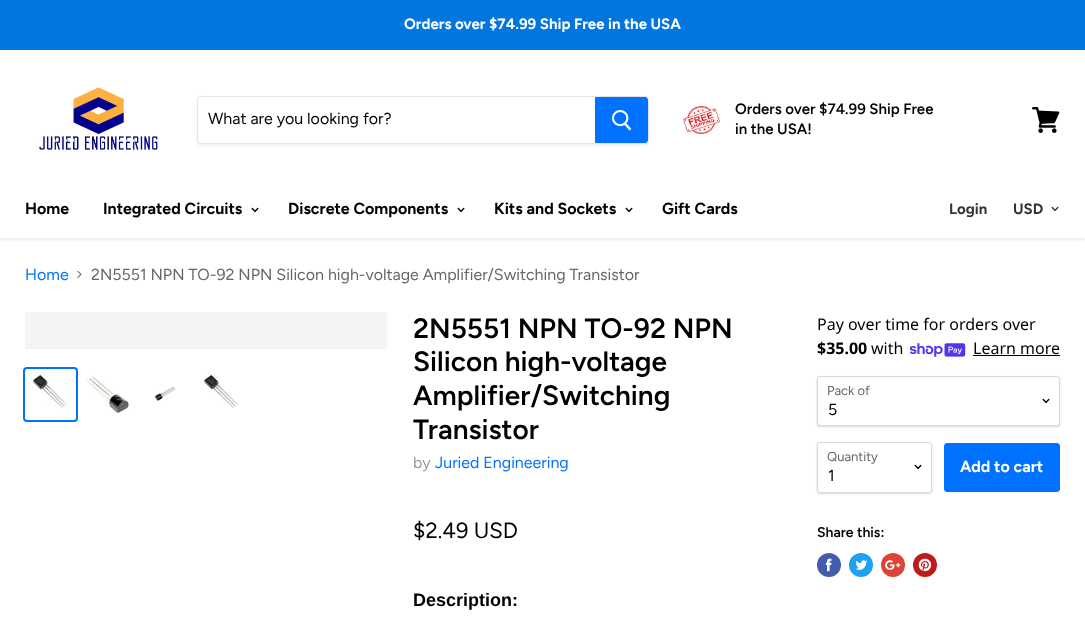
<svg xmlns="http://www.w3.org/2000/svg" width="1085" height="634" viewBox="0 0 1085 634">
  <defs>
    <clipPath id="clip1"><rect x="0" y="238" width="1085" height="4"/></clipPath>
    <clipPath id="clip2"><path d="M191 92H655V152H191ZM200 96H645C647 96 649 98 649 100V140C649 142 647 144 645 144H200C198.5 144 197 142.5 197 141V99C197 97.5 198.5 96 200 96Z" clip-rule="evenodd"/></clipPath>
    <clipPath id="clip3"><path d="M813 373H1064V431H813ZM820 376H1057C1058.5 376 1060 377.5 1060 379V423C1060 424.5 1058.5 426 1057 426H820C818.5 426 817 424.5 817 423V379C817 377.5 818.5 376 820 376Z" clip-rule="evenodd"/></clipPath>
    <clipPath id="clip4"><path d="M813 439H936V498H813ZM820 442H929C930.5 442 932 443.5 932 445V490C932 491.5 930.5 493 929 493H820C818.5 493 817 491.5 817 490V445C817 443.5 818.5 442 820 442Z" clip-rule="evenodd"/></clipPath>
  </defs>
  <rect width="100%" height="100%" fill="rgb(255,255,255)"/>
  <g clip-path="url(#clip1)">
    <rect x="0" y="1" width="1085" height="238" fill="rgba(127,127,127,0.25)" filter="blur(2px)"/>
  </g>
  <rect x="0" y="0" width="1085" height="50" fill="rgb(0,118,222)"/>
  <text x="404" y="29" font-family="Figtree" font-size="15" font-weight="bold" fill="rgb(255,255,255)">Orders over $74.99 Ship Free in the USA</text>
  <image x="38" y="86" width="120" height="64" href="pic1.png"/>
  <g clip-path="url(#clip2)">
    <rect x="197" y="98" width="452" height="48" rx="4" fill="rgba(127,127,127,0.11)" filter="blur(1.5px)"/>
  </g>
  <path d="M200 96.5H645C647 96.5 648.5 98 648.5 100V140C648.5 142 647 143.5 645 143.5H200C198.5 143.5 197.5 142.5 197.5 141V99C197.5 97.5 198.5 96.5 200 96.5Z" fill="none" stroke="rgba(127,127,127,0.2)"/>
  <text x="208" y="124" font-family="Figtree" font-size="16" fill="rgb(0,0,0)">What are you looking for?</text>
  <path d="M595.5 97.5H645C646.5 97.5 647.5 98.5 647.5 100V140C647.5 141.5 646.5 142.5 645 142.5H595.5Z" fill="rgb(0,114,255)" stroke="rgb(0,114,255)"/>
  <image x="612" y="110" width="20" height="21" href="pic2.png"/>
  <image x="683" y="106" width="37" height="28" href="pic3.png"/>
  <g font-family="Figtree" font-size="15" font-weight="600" fill="rgb(0,0,0)">
    <text>
      <tspan x="735" y="114">Orders over $74.99 Ship Free</tspan>
      <tspan x="735" y="134">in the USA!</tspan>
    </text>
  </g>
  <image x="1032" y="107" width="28" height="26" href="pic4.png"/>
  <g font-family="Figtree" font-size="16" font-weight="bold" fill="rgb(0,0,0)">
    <text x="25" y="214">Home</text>
    <text x="103" y="214">Integrated Circuits</text>
  </g>
  <image x="251" y="207" width="8" height="6" href="pic5.png"/>
  <text x="288" y="214" font-family="Figtree" font-size="16" font-weight="bold" fill="rgb(0,0,0)">Discrete Components</text>
  <image x="457" y="207" width="8" height="6" href="pic5.png"/>
  <text x="494" y="214" font-family="Figtree" font-size="16" font-weight="bold" fill="rgb(0,0,0)">Kits and Sockets</text>
  <image x="625" y="207" width="8" height="6" href="pic5.png"/>
  <text x="662" y="214" font-family="Figtree" font-size="16" font-weight="bold" fill="rgb(0,0,0)">Gift Cards</text>
  <g font-family="Figtree" font-size="15" font-weight="bold" fill="rgb(51,51,51)">
    <text x="949" y="214">Login</text>
    <text x="1013" y="214">USD</text>
  </g>
  <image x="1051" y="206" width="8" height="6" href="pic6.png"/>
  <text x="25" y="280" font-family="Figtree" font-size="16" fill="rgb(0,114,255)">Home</text>
  <image x="77" y="271" width="5" height="7" href="pic7.png"/>
  <text x="91" y="280" font-family="Figtree" font-size="16" fill="rgb(102,102,102)">2N5551 NPN TO-92 NPN Silicon high-voltage Amplifier/Switching Transistor</text>
  <rect x="25" y="312" width="362" height="37" fill="rgb(244,244,244)"/>
  <rect x="24" y="368" width="53" height="53" rx="3" fill="none" stroke="rgb(0,114,255)" stroke-width="2"/>
  <image x="32" y="375" width="35" height="34" href="pic8.png"/>
  <image x="86" y="375" width="45" height="39" href="pic9.png"/>
  <image x="153" y="386" width="23" height="17" href="pic10.png"/>
  <image x="202" y="375" width="36" height="33" href="pic11.png"/>
  <g font-family="Figtree" font-size="28" font-weight="600" fill="rgb(0,0,0)">
    <text>
      <tspan x="413" y="338">2N5551 NPN TO-92 NPN</tspan>
      <tspan x="413" y="371">Silicon high-voltage</tspan>
      <tspan x="413" y="405">Amplifier/Switching</tspan>
      <tspan x="413" y="439">Transistor</tspan>
    </text>
  </g>
  <text x="413" y="468" font-family="Figtree" font-size="16" fill="rgb(153,153,153)">by</text>
  <text x="435" y="468" font-family="Figtree" font-size="16" fill="rgb(0,114,255)">Juried Engineering</text>
  <text x="413" y="538" font-family="Figtree" font-size="22" fill="rgb(0,0,0)">$2.49 USD</text>
  <text x="413" y="606" font-family="Liberation Sans" font-size="18" font-weight="bold" fill="rgb(0,0,0)">Description:</text>
  <text x="817" y="330" font-family="Noto Sans" font-size="16" fill="rgb(0,0,0)">Pay over time for orders over</text>
  <text x="817" y="354" font-family="Noto Sans" font-size="16" font-weight="bold" fill="rgb(0,0,0)">$35.00</text>
  <text x="871" y="354" font-family="Noto Sans" font-size="16" fill="rgb(0,0,0)">with</text>
  <image x="909" y="343" width="57" height="14" href="pic12.png"/>
  <text x="973" y="354" font-family="Noto Sans" font-size="16" fill="rgb(0,0,0)">Learn more</text>
  <rect x="973" y="355" width="87" height="1" fill="rgb(0,0,0)"/>
  <g clip-path="url(#clip3)">
    <rect x="817" y="377" width="243" height="50" rx="3" fill="rgba(0,0,0,0.15)" filter="blur(1px)"/>
  </g>
  <rect x="817.5" y="376.5" width="242" height="49" rx="2.5" fill="none" stroke="rgba(127,127,127,0.3)"/>
  <text x="827" y="395" font-family="Figtree" font-size="13" fill="rgb(102,102,102)">Pack of</text>
  <image x="1042" y="398" width="8" height="6" href="pic5.png"/>
  <text x="828" y="415" font-family="Figtree" font-size="16" fill="rgb(0,0,0)">5</text>
  <g clip-path="url(#clip4)">
    <rect x="817" y="443" width="115" height="51" rx="3" fill="rgba(0,0,0,0.15)" filter="blur(1px)"/>
  </g>
  <rect x="817.5" y="442.5" width="114" height="50" rx="2.5" fill="none" stroke="rgba(127,127,127,0.3)"/>
  <text x="827" y="461" font-family="Figtree" font-size="13" fill="rgb(102,102,102)">Quantity</text>
  <image x="914" y="464" width="8" height="6" href="pic5.png"/>
  <text x="828" y="481" font-family="Figtree" font-size="16" fill="rgb(0,0,0)">1</text>
  <rect x="944.5" y="443.5" width="115" height="48" rx="2.5" fill="rgb(0,114,255)" stroke="rgb(0,114,255)"/>
  <text x="960" y="472" font-family="Figtree" font-size="16" font-weight="bold" fill="rgb(255,255,255)">Add to cart</text>
  <text x="817" y="537" font-family="Figtree" font-size="14" font-weight="600" fill="rgb(0,0,0)">Share this:</text>
  <circle cx="829" cy="565" r="12" fill="rgb(66,93,171)"/>
  <image x="825" y="558" width="7" height="14" href="pic13.png"/>
  <circle cx="861" cy="565" r="12" fill="rgb(29,161,242)"/>
  <image x="855" y="560" width="13" height="10" href="pic14.png"/>
  <circle cx="893" cy="565" r="12" fill="rgb(219,68,55)"/>
  <image x="885" y="560" width="16" height="10" href="pic15.png"/>
  <circle cx="925" cy="565" r="12" fill="rgb(189,28,28)"/>
  <image x="918" y="558" width="14" height="14" href="pic16.png"/>
</svg>
